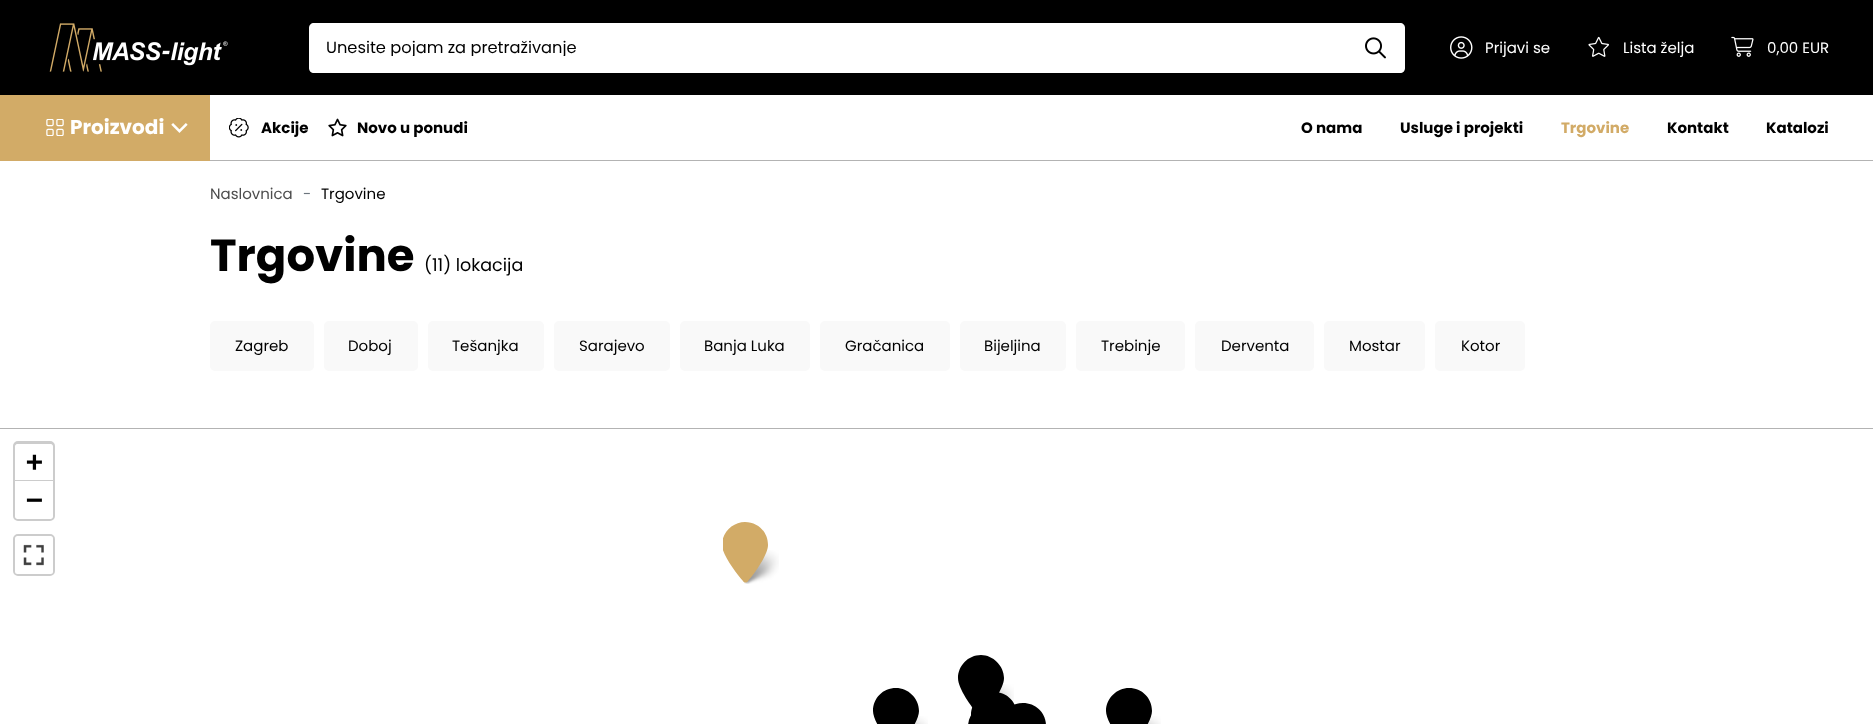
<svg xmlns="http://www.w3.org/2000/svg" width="1873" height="724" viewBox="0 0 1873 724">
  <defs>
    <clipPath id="clip1"><rect x="326" y="40" width="1004" height="16"/></clipPath>
    <clipPath id="clip2"><rect x="723" y="521" width="46" height="63"/></clipPath>
  </defs>
  <rect width="100%" height="100%" fill="rgb(255,255,255)"/>
  <rect x="0" y="0" width="1873" height="95" fill="rgb(0,0,0)"/>
  <image x="49" y="23" width="179" height="49" href="pic1.png"/>
  <path d="M314 23H1348V73H314C311 73 309 71 309 68V28C309 25 311 23 314 23Z" fill="rgb(255,255,255)"/>
  <g clip-path="url(#clip1)">
    <text x="326" y="53" font-family="Poppins" font-size="16.25" fill="rgb(0,0,0)">Unesite pojam za pretraživanje</text>
  </g>
  <path d="M1348 23H1400C1403 23 1405 25 1405 28V68C1405 71 1403 73 1400 73H1348Z" fill="rgb(255,255,255)"/>
  <image x="1365" y="37" width="21" height="22" href="pic2.png"/>
  <image x="1450" y="36" width="23" height="23" href="pic3.png"/>
  <text x="1485" y="53" font-family="Poppins" font-size="15" fill="rgb(255,255,255)">Prijavi se</text>
  <image x="1588" y="36" width="21" height="21" href="pic4.png"/>
  <text x="1623" y="53" font-family="Poppins" font-size="15" fill="rgb(255,255,255)">Lista želja</text>
  <image x="1731" y="36" width="23" height="21" href="pic5.png"/>
  <text x="1767" y="53" font-family="Poppins" font-size="15" fill="rgb(255,255,255)">0,00 EUR</text>
  <rect x="0" y="95" width="210" height="66" fill="rgb(210,171,103)"/>
  <image x="46" y="119" width="18" height="17" href="pic6.png"/>
  <text x="70" y="134" font-family="Poppins" font-size="20" font-weight="bold" fill="rgb(255,255,255)">Proizvodi</text>
  <image x="171" y="123" width="17" height="10" href="pic7.png"/>
  <image x="229" y="118" width="20" height="20" href="pic8.png"/>
  <text x="261" y="133" font-family="Poppins" font-size="15" font-weight="bold" fill="rgb(0,0,0)">Akcije</text>
  <image x="328" y="118" width="19" height="19" href="pic9.png"/>
  <g font-family="Poppins" font-size="15" font-weight="bold" fill="rgb(0,0,0)">
    <text x="357" y="133">Novo u ponudi</text>
    <text x="1301" y="133">O nama</text>
    <text x="1400" y="133">Usluge i projekti</text>
  </g>
  <text x="1561" y="133" font-family="Poppins" font-size="15" font-weight="bold" fill="rgb(210,171,103)">Trgovine</text>
  <g font-family="Poppins" font-size="15" font-weight="bold" fill="rgb(0,0,0)">
    <text x="1667" y="133">Kontakt</text>
    <text x="1766" y="133">Katalozi</text>
  </g>
  <rect x="210" y="160" width="1663" height="1" fill="rgb(179,179,179)"/>
  <text x="210" y="199" font-family="Poppins" font-size="15" fill="rgb(77,77,77)">Naslovnica</text>
  <text x="303" y="199" font-family="Poppins" font-size="15" fill="rgb(108,117,125)">-</text>
  <text x="321" y="199" font-family="Poppins" font-size="15" fill="rgb(0,0,0)">Trgovine</text>
  <text x="210" y="271" font-family="Poppins" font-size="45" font-weight="bold" fill="rgb(0,0,0)">Trgovine</text>
  <text x="424" y="271" font-family="Poppins" font-size="17.5" fill="rgb(0,0,0)">(11) lokacija</text>
  <rect x="210" y="321" width="104" height="50" rx="5" fill="rgb(249,249,249)"/>
  <text x="235" y="351" font-family="Poppins" font-size="15" fill="rgb(0,0,0)">Zagreb</text>
  <rect x="324" y="321" width="94" height="50" rx="5" fill="rgb(249,249,249)"/>
  <text x="348" y="351" font-family="Poppins" font-size="15" fill="rgb(0,0,0)">Doboj</text>
  <rect x="428" y="321" width="116" height="50" rx="5" fill="rgb(249,249,249)"/>
  <text x="452" y="351" font-family="Poppins" font-size="15" fill="rgb(0,0,0)">Tešanjka</text>
  <rect x="554" y="321" width="116" height="50" rx="5" fill="rgb(249,249,249)"/>
  <text x="579" y="351" font-family="Poppins" font-size="15" fill="rgb(0,0,0)">Sarajevo</text>
  <rect x="680" y="321" width="130" height="50" rx="5" fill="rgb(249,249,249)"/>
  <text x="704" y="351" font-family="Poppins" font-size="15" fill="rgb(0,0,0)">Banja Luka</text>
  <rect x="820" y="321" width="130" height="50" rx="5" fill="rgb(249,249,249)"/>
  <text x="845" y="351" font-family="Poppins" font-size="15" fill="rgb(0,0,0)">Gračanica</text>
  <rect x="960" y="321" width="106" height="50" rx="5" fill="rgb(249,249,249)"/>
  <text x="984" y="351" font-family="Poppins" font-size="15" fill="rgb(0,0,0)">Bijeljina</text>
  <rect x="1076" y="321" width="109" height="50" rx="5" fill="rgb(249,249,249)"/>
  <text x="1101" y="351" font-family="Poppins" font-size="15" fill="rgb(0,0,0)">Trebinje</text>
  <rect x="1195" y="321" width="119" height="50" rx="5" fill="rgb(249,249,249)"/>
  <text x="1221" y="351" font-family="Poppins" font-size="15" fill="rgb(0,0,0)">Derventa</text>
  <rect x="1324" y="321" width="101" height="50" rx="5" fill="rgb(249,249,249)"/>
  <text x="1349" y="351" font-family="Poppins" font-size="15" fill="rgb(0,0,0)">Mostar</text>
  <rect x="1435" y="321" width="90" height="50" rx="5" fill="rgb(249,249,249)"/>
  <text x="1461" y="351" font-family="Poppins" font-size="15" fill="rgb(0,0,0)">Kotor</text>
  <rect x="0" y="428" width="1873" height="1" fill="rgb(179,179,179)"/>
  <rect x="14.5" y="442.5" width="39" height="77" rx="3.5" fill="none" stroke="rgb(204,204,204)" stroke-width="3"/>
  <path d="M17.5 444H50.5C52 444 53 445 53 446.5V481H15V446.5C15 445 16 444 17.5 444Z" fill="rgb(255,255,255)"/>
  <rect x="15" y="480" width="38" height="1" fill="rgb(204,204,204)"/>
  <text x="26" y="471" font-family="DejaVu Sans Mono" font-size="28" font-weight="bold" fill="rgb(0,0,0)">+</text>
  <path d="M15 481H53V516.5C53 518 52 519 50.5 519H17.5C16 519 15 518 15 516.5Z" fill="rgb(255,255,255)"/>
  <text x="26" y="509" font-family="DejaVu Sans Mono" font-size="28" font-weight="bold" fill="rgb(0,0,0)">−</text>
  <rect x="14.5" y="535.5" width="39" height="39" rx="3.5" fill="none" stroke="rgb(204,204,204)" stroke-width="3"/>
  <rect x="15" y="536" width="38" height="38" rx="2.5" fill="rgb(255,255,255)"/>
  <image x="23" y="544" width="21" height="22" href="pic10.png"/>
  <image x="744" y="550" width="35" height="34" href="pic11.png"/>
  <g clip-path="url(#clip2)">
    <path d="M768 545C768 555 754 574 748 581C747 583 744 583 743 581C737 574 722 555 722 545C722 532 733 522 745 522C758 522 768 532 768 545Z" fill="rgb(210,171,103)"/>
  </g>
  <image x="914" y="716" width="14" height="8" href="pic13.png"/>
  <path d="M919 711C919 721 905 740 898 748C897 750 894 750 893 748C887 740 873 721 873 711C873 698 883 688 896 688C908 688 919 698 919 711Z" fill="rgb(0,0,0)"/>
  <image x="998" y="684" width="16" height="17" href="pic12.png"/>
  <path d="M1004 678C1004 689 990 707 983 715C982 717 979 717 978 715C972 707 958 689 958 678C958 666 968 655 981 655C993 655 1004 666 1004 678Z" fill="rgb(0,0,0)"/>
  <image x="1147" y="716" width="14" height="8" href="pic14.png"/>
  <path d="M1152 711C1152 721 1138 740 1132 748C1131 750 1128 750 1126 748C1120 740 1106 721 1106 711C1106 698 1117 688 1129 688C1142 688 1152 698 1152 711Z" fill="rgb(0,0,0)"/>
  <path d="M1017 715C1017 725 1003 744 997 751C996 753 993 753 991 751C985 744 971 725 971 715C971 702 982 692 994 692C1007 692 1017 702 1017 715Z" fill="rgb(0,0,0)"/>
  <path d="M1046 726C1046 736 1032 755 1026 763C1024 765 1022 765 1020 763C1014 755 1000 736 1000 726C1000 713 1010 703 1023 703C1036 703 1046 713 1046 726Z" fill="rgb(0,0,0)"/>
  <path d="M1014 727C1014 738 1000 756 993 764C992 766 989 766 988 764C982 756 968 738 968 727C968 714 978 704 991 704C1003 704 1014 714 1014 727Z" fill="rgb(0,0,0)"/>
</svg>
